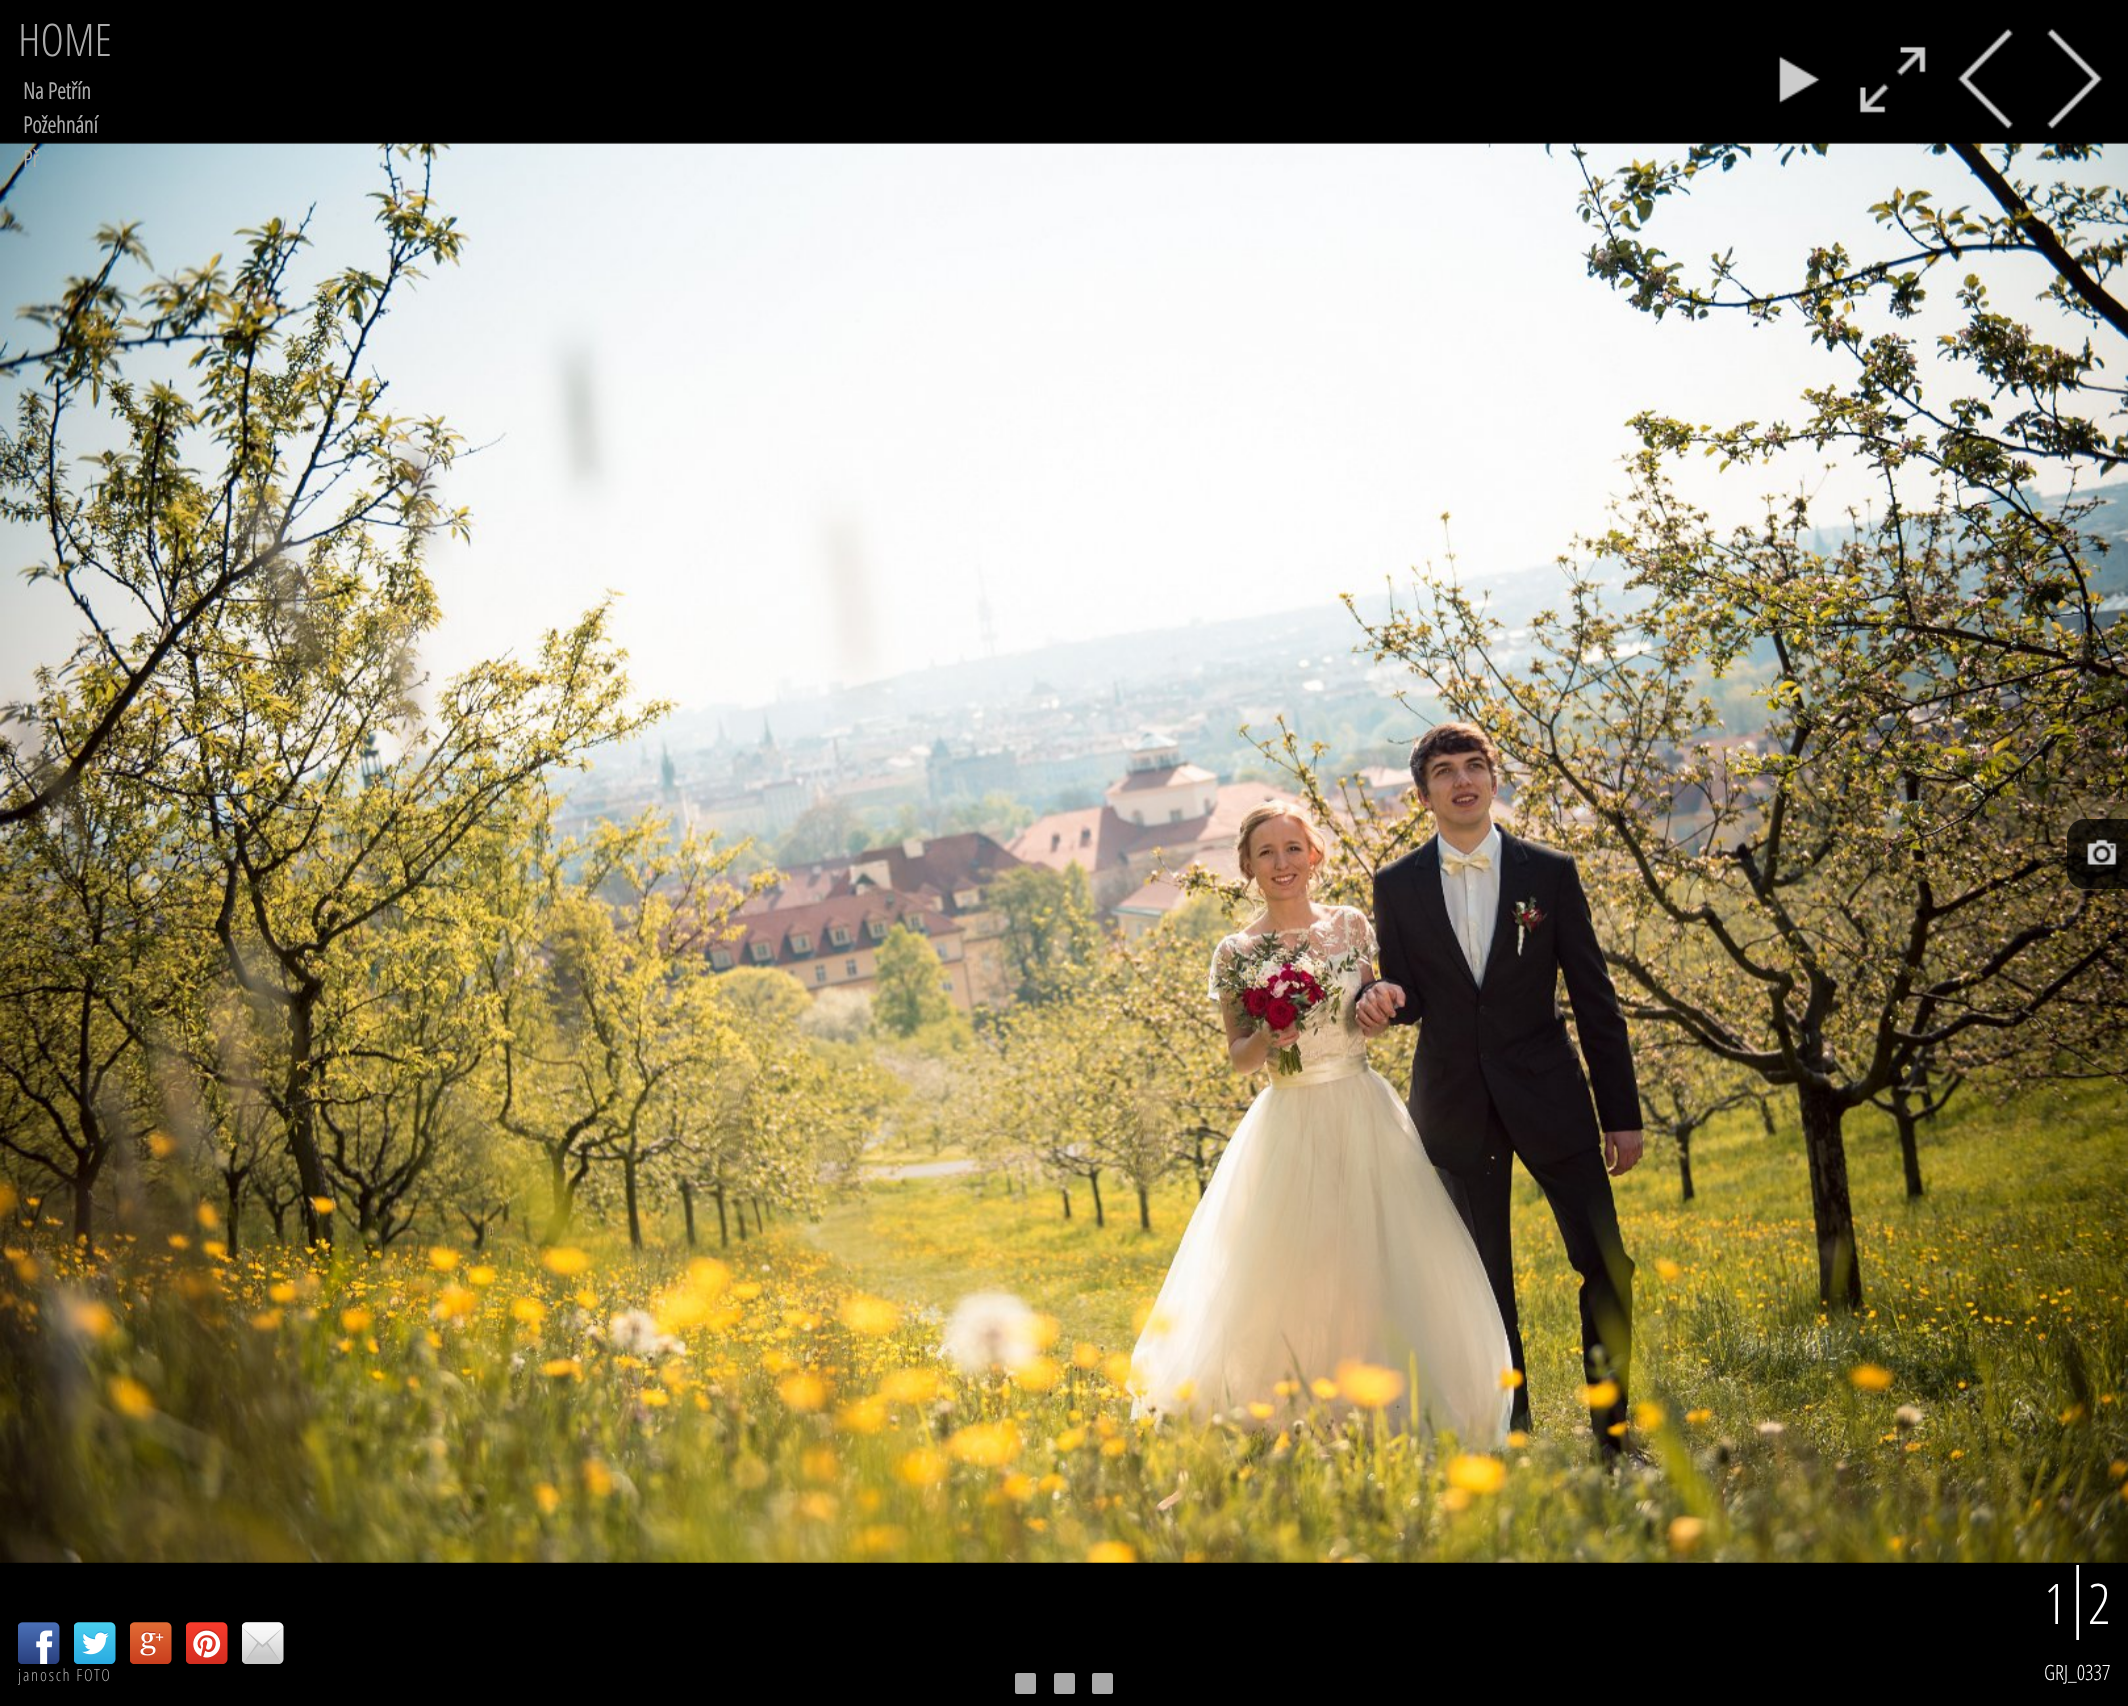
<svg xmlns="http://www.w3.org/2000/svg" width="2128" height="1706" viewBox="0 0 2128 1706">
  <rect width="100%" height="100%" fill="rgb(0,0,0)"/>
  <text x="18" y="56" font-family="Open Sans" font-size="45" font-weight="300" fill="rgb(170,170,170)">HOME</text>
  <g font-family="Open Sans" font-size="22.5" font-weight="bold" fill="rgb(170,170,170)">
    <text>
      <tspan x="23" y="99">Na Petřín</tspan>
      <tspan x="23" y="133">Požehnání</tspan>
    </text>
  </g>
  <image x="0" y="142" width="2128" height="1421" href="pic5.png"/>
  <text x="23" y="167" font-family="Open Sans" font-size="22.5" font-weight="bold" fill="rgb(170,170,170)">Př</text>
  <image x="1779" y="55" width="42" height="49" href="pic1.png"/>
  <image x="1859" y="46" width="67" height="67" href="pic2.png"/>
  <image x="1957" y="28" width="56" height="102" href="pic3.png"/>
  <image x="2047" y="28" width="56" height="102" href="pic4.png"/>
  <path d="M2085 819H2128V889H2085C2075 889 2067 881 2067 871V837C2067 827 2075 819 2085 819Z" fill="rgba(0,0,0,0.75)"/>
  <image x="2087" y="839" width="31" height="27" href="pic6.png"/>
  <image x="18" y="1622" width="42" height="42" href="pic7.png"/>
  <image x="74" y="1622" width="42" height="42" href="pic8.png"/>
  <image x="130" y="1622" width="42" height="42" href="pic9.png"/>
  <image x="186" y="1622" width="42" height="42" href="pic10.png"/>
  <image x="242" y="1622" width="42" height="42" href="pic11.png"/>
  <text x="18" y="1681" font-family="Open Sans" font-size="16.75" font-weight="300" letter-spacing="1.75" fill="rgb(170,170,170)">janosch FOTO</text>
  <rect x="1015" y="1673" width="21" height="21" rx="2" fill="rgb(170,170,170)"/>
  <rect x="1054" y="1673" width="21" height="21" rx="2" fill="rgb(170,170,170)"/>
  <rect x="1092" y="1673" width="21" height="21" rx="2" fill="rgb(170,170,170)"/>
  <g font-family="Open Sans" font-size="56" font-weight="300" fill="rgb(255,255,255)">
    <text x="2044" y="1624">1</text>
    <text x="2088" y="1624">2</text>
  </g>
  <path d="M2076 1565V1640H2109H2077V1565Z" fill="rgb(170,170,170)"/>
  <rect x="2077" y="1565" width="2" height="75" fill="rgb(255,255,255)"/>
  <text x="2044" y="1680" font-family="Open Sans" font-size="21" font-weight="300" fill="rgb(255,255,255)">GRJ_0337</text>
</svg>
